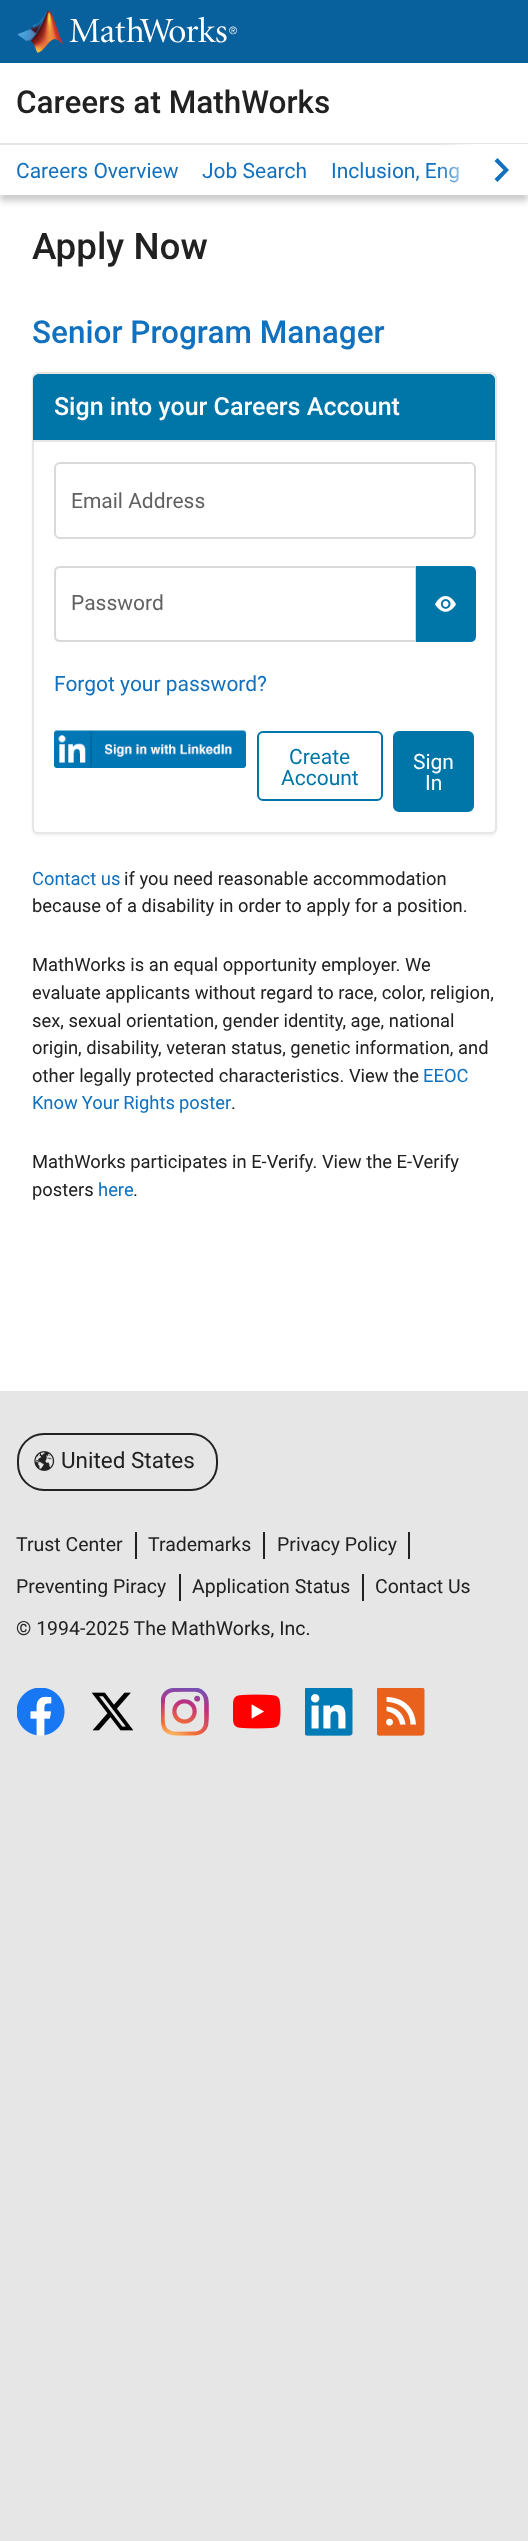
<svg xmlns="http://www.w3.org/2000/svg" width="528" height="2541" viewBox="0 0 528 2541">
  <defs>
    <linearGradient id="g1" gradientUnits="userSpaceOnUse" x1="438" y1="170" x2="513" y2="170"><stop offset="0" stop-color="rgb(255,255,255)" stop-opacity="0"/><stop offset="0.5" stop-color="rgb(255,255,255)"/><stop offset="1" stop-color="rgb(255,255,255)"/></linearGradient>
  </defs>
  <rect width="100%" height="100%" fill="rgb(230,230,230)"/>
  <rect x="0" y="0" width="528" height="63" fill="rgb(8,96,157)"/>
  <image x="17" y="10" width="220" height="43" href="pic1.png"/>
  <rect x="0" y="195" width="528" height="1196" fill="rgb(255,255,255)"/>
  <rect x="0" y="69" width="528" height="132" fill="rgba(0,0,0,0.2)" filter="blur(3px)"/>
  <rect x="0" y="63" width="528" height="132" fill="rgb(255,255,255)"/>
  <text x="16" y="113" font-family="Roboto" font-size="31.5" font-weight="500" fill="rgb(33,33,33)">Careers at MathWorks</text>
  <rect x="0" y="143" width="528" height="2" fill="rgb(230,230,230)"/>
  <rect x="513" y="144" width="15" height="1" fill="rgb(255,255,255)"/>
  <g font-family="Roboto" font-size="21" fill="rgb(17,113,190)">
    <text x="16" y="178">Careers Overview</text>
    <text x="202" y="178">Job Search</text>
    <text x="331" y="178">Inclusion, Eng</text>
  </g>
  <rect x="439" y="144" width="74" height="39" fill="url(#g1)"/>
  <path d="M497.5 158L494.5 161L503.5 170L494.5 179L497.5 182L509 170Z" fill="rgb(17,113,190)"/>
  <text x="32" y="259" font-family="Roboto" font-size="36.75" font-weight="500" fill="rgb(33,33,33)">Apply Now</text>
  <text x="32" y="343" font-family="Roboto" font-size="31.5" font-weight="500" fill="rgb(17,113,190)">Senior Program Manager</text>
  <rect x="32" y="374" width="465" height="462" rx="6" fill="rgba(0,0,0,0.05)" filter="blur(1px)"/>
  <rect x="33" y="373" width="463" height="460" rx="5" fill="rgb(255,255,255)" stroke="rgb(230,230,230)" stroke-width="2"/>
  <path d="M39 374H489C492.5 374 495 376.5 495 380V441H33V380C33 376.5 35.5 374 39 374Z" fill="rgb(0,118,168)"/>
  <rect x="33" y="440" width="462" height="2" fill="rgb(230,230,230)"/>
  <text x="54" y="415" font-family="Roboto" font-size="25" font-weight="500" fill="rgb(255,255,255)">Sign into your Careers Account</text>
  <rect x="55" y="463" width="420" height="75" rx="5" fill="none" stroke="rgb(217,217,217)" stroke-width="2"/>
  <text x="71" y="508" font-family="Roboto" font-size="21" fill="rgb(97,97,97)">Email Address</text>
  <path d="M60 567H416V641H60C57 641 55 639 55 636V572C55 569 57 567 60 567Z" fill="none" stroke="rgb(217,217,217)" stroke-width="2"/>
  <text x="71" y="610" font-family="Roboto" font-size="21" fill="rgb(97,97,97)">Password</text>
  <path d="M417 567H470C473 567 475 569 475 572V636C475 639 473 641 470 641H417Z" fill="rgb(0,118,168)" stroke="rgb(0,118,168)" stroke-width="2"/>
  <image x="435" y="596" width="21" height="16" href="pic2.png"/>
  <text x="54" y="691" font-family="Roboto" font-size="21" fill="rgb(17,113,190)">Forgot your password?</text>
  <image x="54" y="730" width="192" height="38" href="pic3.png"/>
  <rect x="258" y="732" width="124" height="68" rx="5" fill="none" stroke="rgb(0,118,168)" stroke-width="2"/>
  <g font-family="Roboto" font-size="21" fill="rgb(0,118,168)">
    <text x="289" y="764">Create</text>
    <text x="281" y="785">Account</text>
  </g>
  <rect x="394" y="732" width="79" height="79" rx="5" fill="rgb(0,118,168)" stroke="rgb(0,118,168)" stroke-width="2"/>
  <g font-family="Roboto" font-size="21" fill="rgb(255,255,255)">
    <text x="413" y="769">Sign</text>
    <text x="425" y="790">In</text>
  </g>
  <text x="32" y="885" font-family="Roboto" font-size="18.4" fill="rgb(17,113,190)">Contact us</text>
  <g font-family="Roboto" font-size="18.4" fill="rgb(33,33,33)">
    <text x="124" y="885">if you need reasonable accommodation</text>
    <text x="32" y="912">because of a disability in order to apply for a position.</text>
    <text>
      <tspan x="32" y="971">MathWorks is an equal opportunity employer. We</tspan>
      <tspan x="32" y="999">evaluate applicants without regard to race, color, religion,</tspan>
      <tspan x="32" y="1027">sex, sexual orientation, gender identity, age, national</tspan>
      <tspan x="32" y="1054">origin, disability, veteran status, genetic information, and</tspan>
      <tspan x="32" y="1082">other legally protected characteristics. View the</tspan>
    </text>
  </g>
  <g font-family="Roboto" font-size="18.4" fill="rgb(17,113,190)">
    <text x="423" y="1082">EEOC</text>
    <text x="32" y="1109" word-spacing="-0.5">Know Your Rights poster</text>
  </g>
  <g font-family="Roboto" font-size="18.4" fill="rgb(33,33,33)">
    <text x="231" y="1109">.</text>
    <text>
      <tspan x="32" y="1168">MathWorks participates in E-Verify. View the E-Verify</tspan>
      <tspan x="32" y="1196">posters</tspan>
    </text>
  </g>
  <text x="98" y="1196" font-family="Roboto" font-size="18.4" fill="rgb(17,113,190)">here</text>
  <text x="133" y="1196" font-family="Roboto" font-size="18.4" fill="rgb(33,33,33)">.</text>
  <rect x="18" y="1434" width="199" height="56" rx="26" fill="none" stroke="rgb(33,33,33)" stroke-width="2"/>
  <image x="34" y="1451" width="21" height="20" href="pic4.png"/>
  <text x="61" y="1468" font-family="Roboto" font-size="22.5" fill="rgb(33,33,33)">United States</text>
  <rect x="135" y="1532" width="2" height="27" fill="rgb(33,33,33)"/>
  <text x="16" y="1551" font-family="Roboto" font-size="19.5" fill="rgb(33,33,33)">Trust Center</text>
  <rect x="263" y="1532" width="2" height="27" fill="rgb(33,33,33)"/>
  <text x="148" y="1551" font-family="Roboto" font-size="19.5" fill="rgb(33,33,33)">Trademarks</text>
  <rect x="408" y="1532" width="2" height="27" fill="rgb(33,33,33)"/>
  <text x="277" y="1551" font-family="Roboto" font-size="19.5" fill="rgb(33,33,33)">Privacy Policy</text>
  <rect x="179" y="1574" width="2" height="27" fill="rgb(33,33,33)"/>
  <text x="16" y="1593" font-family="Roboto" font-size="19.5" fill="rgb(33,33,33)">Preventing Piracy</text>
  <rect x="362" y="1574" width="2" height="27" fill="rgb(33,33,33)"/>
  <g font-family="Roboto" font-size="19.5" fill="rgb(33,33,33)">
    <text x="192" y="1593">Application Status</text>
    <text x="375" y="1593">Contact Us</text>
    <text x="16" y="1635">© 1994-2025 The MathWorks, Inc.</text>
  </g>
  <image x="17" y="1688" width="48" height="48" href="pic5.png"/>
  <image x="91" y="1692" width="43" height="39" href="pic6.png"/>
  <image x="161" y="1688" width="48" height="48" href="pic7.png"/>
  <image x="233" y="1694" width="48" height="35" href="pic8.png"/>
  <image x="305" y="1688" width="48" height="48" href="pic9.png"/>
  <image x="377" y="1688" width="48" height="48" href="pic10.png"/>
</svg>
